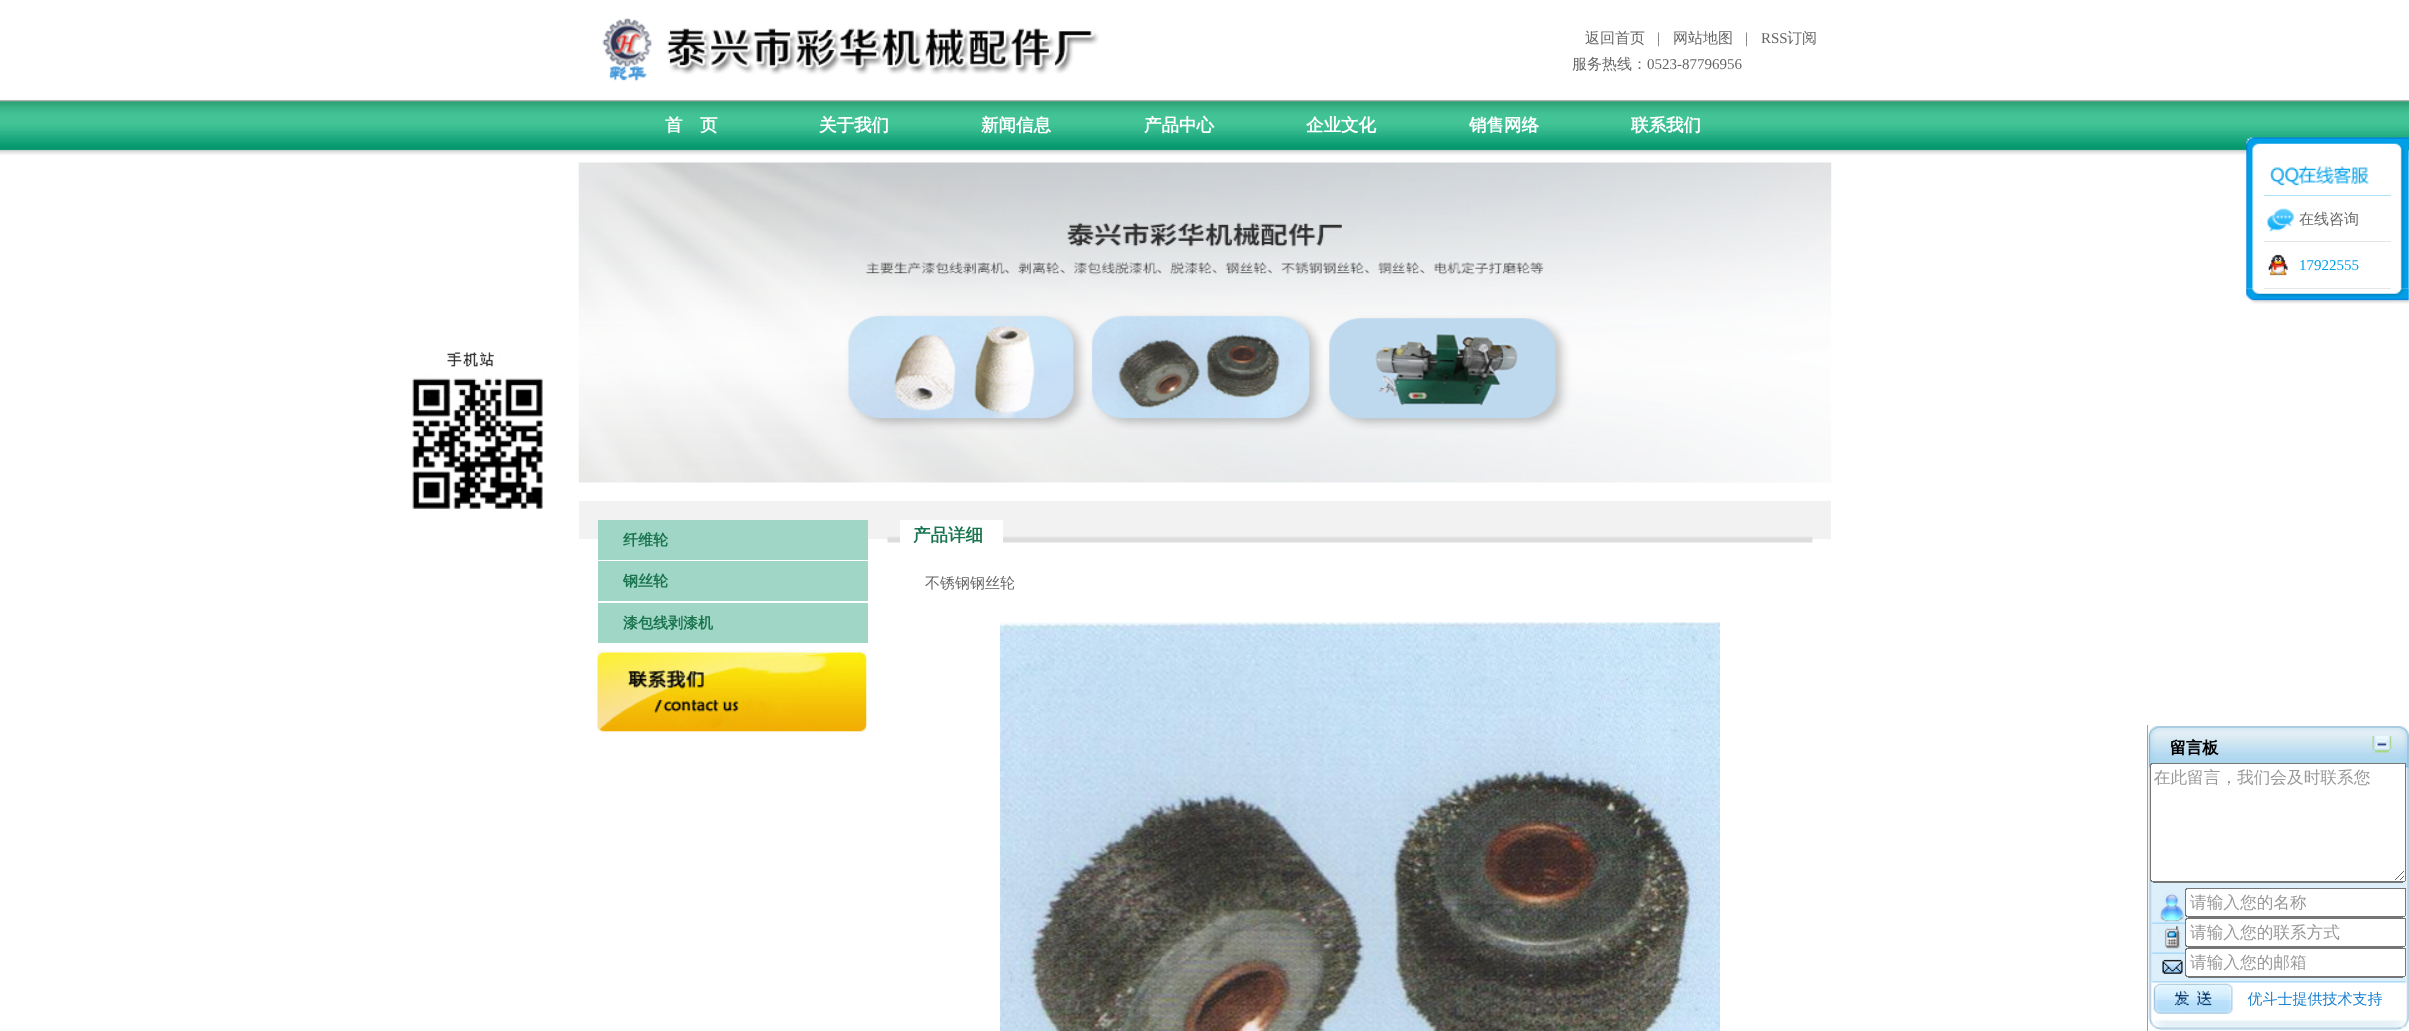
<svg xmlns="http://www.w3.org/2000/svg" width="2409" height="1031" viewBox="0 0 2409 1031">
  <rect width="100%" height="100%" fill="rgb(255,255,255)"/>
  <image x="602" y="18" width="497" height="64" href="pic1.png"/>
  <text x="1585" y="43" font-family="WenQuanYi Zen Hei" font-size="15" font-weight="500" fill="rgb(102,102,102)">返回首页</text>
  <text x="1657" y="43" font-family="Liberation Serif" font-size="15" fill="rgb(102,102,102)">|</text>
  <text x="1673" y="43" font-family="WenQuanYi Zen Hei" font-size="15" font-weight="500" fill="rgb(102,102,102)">网站地图</text>
  <g font-family="Liberation Serif" font-size="15" fill="rgb(102,102,102)">
    <text x="1745" y="43">|</text>
    <text x="1761" y="43">RSS</text>
  </g>
  <g font-family="WenQuanYi Zen Hei" font-size="15" font-weight="500" fill="rgb(102,102,102)">
    <text x="1787" y="43">订阅</text>
    <text x="1572" y="69">服务热线：</text>
  </g>
  <text x="1647" y="69" font-family="Liberation Serif" font-size="15" fill="rgb(102,102,102)">0523-87796956</text>
  <image x="0" y="100" width="2409" height="55" href="pic2.png"/>
  <g font-family="WenQuanYi Zen Hei" font-size="17.5" font-weight="bold" fill="rgb(255,255,255)">
    <text x="665" y="131">首　页</text>
    <text x="819" y="131">关于我们</text>
    <text x="981" y="131">新闻信息</text>
    <text x="1144" y="131">产品中心</text>
    <text x="1306" y="131">企业文化</text>
    <text x="1469" y="131">销售网络</text>
    <text x="1631" y="131">联系我们</text>
  </g>
  <image x="578" y="162" width="1254" height="321" href="pic3.png"/>
  <image x="2246" y="288" width="163" height="16" href="pic4.png"/>
  <image x="2246" y="137" width="163" height="13" href="pic5.png"/>
  <image x="2246" y="150" width="163" height="139" href="pic6.png"/>
  <rect x="2264" y="195" width="127" height="1" fill="rgb(172,229,249)"/>
  <image x="2270" y="166" width="99" height="20" href="pic7.png"/>
  <rect x="2264" y="241" width="127" height="1" fill="rgb(230,229,228)"/>
  <image x="2267" y="208" width="27" height="24" href="pic8.png"/>
  <text x="2299" y="224" font-family="WenQuanYi Zen Hei" font-size="15" font-weight="500" fill="rgb(102,102,102)">在线咨询</text>
  <rect x="2264" y="288" width="127" height="1" fill="rgb(230,229,228)"/>
  <image x="2268" y="254" width="20" height="22" href="pic9.png"/>
  <text x="2299" y="270" font-family="Liberation Serif" font-size="15" fill="rgb(0,160,233)">17922555</text>
  <image x="412" y="352" width="131" height="157" href="pic10.png"/>
  <rect x="579" y="501" width="1252" height="38" fill="rgb(242,242,242)"/>
  <rect x="598" y="520" width="270" height="40" fill="rgb(160,214,197)"/>
  <text x="623" y="545" font-family="WenQuanYi Zen Hei" font-size="15" font-weight="bold" fill="rgb(25,116,79)">纤维轮</text>
  <rect x="598" y="561" width="270" height="40" fill="rgb(160,214,197)"/>
  <text x="623" y="586" font-family="WenQuanYi Zen Hei" font-size="15" font-weight="bold" fill="rgb(25,116,79)">钢丝轮</text>
  <rect x="598" y="603" width="270" height="40" fill="rgb(160,214,197)"/>
  <text x="623" y="628" font-family="WenQuanYi Zen Hei" font-size="15" font-weight="bold" fill="rgb(25,116,79)">漆包线剥漆机</text>
  <image x="597" y="650" width="270" height="82" href="pic11.png"/>
  <image x="887" y="536" width="926" height="7" href="pic12.png"/>
  <rect x="900" y="520" width="103" height="23" fill="rgb(255,255,255)"/>
  <text x="913" y="541" font-family="WenQuanYi Zen Hei" font-size="17.5" font-weight="bold" fill="rgb(25,116,79)">产品详细</text>
  <text x="925" y="588" font-family="WenQuanYi Zen Hei" font-size="15" font-weight="500" fill="rgb(102,102,102)">不锈钢钢丝轮</text>
  <image x="1000" y="622" width="720" height="409" href="pic13.png"/>
  <image x="2147" y="725" width="262" height="306" href="pic14.png"/>
  <image x="2372" y="736" width="20" height="17" href="pic15.png"/>
</svg>
